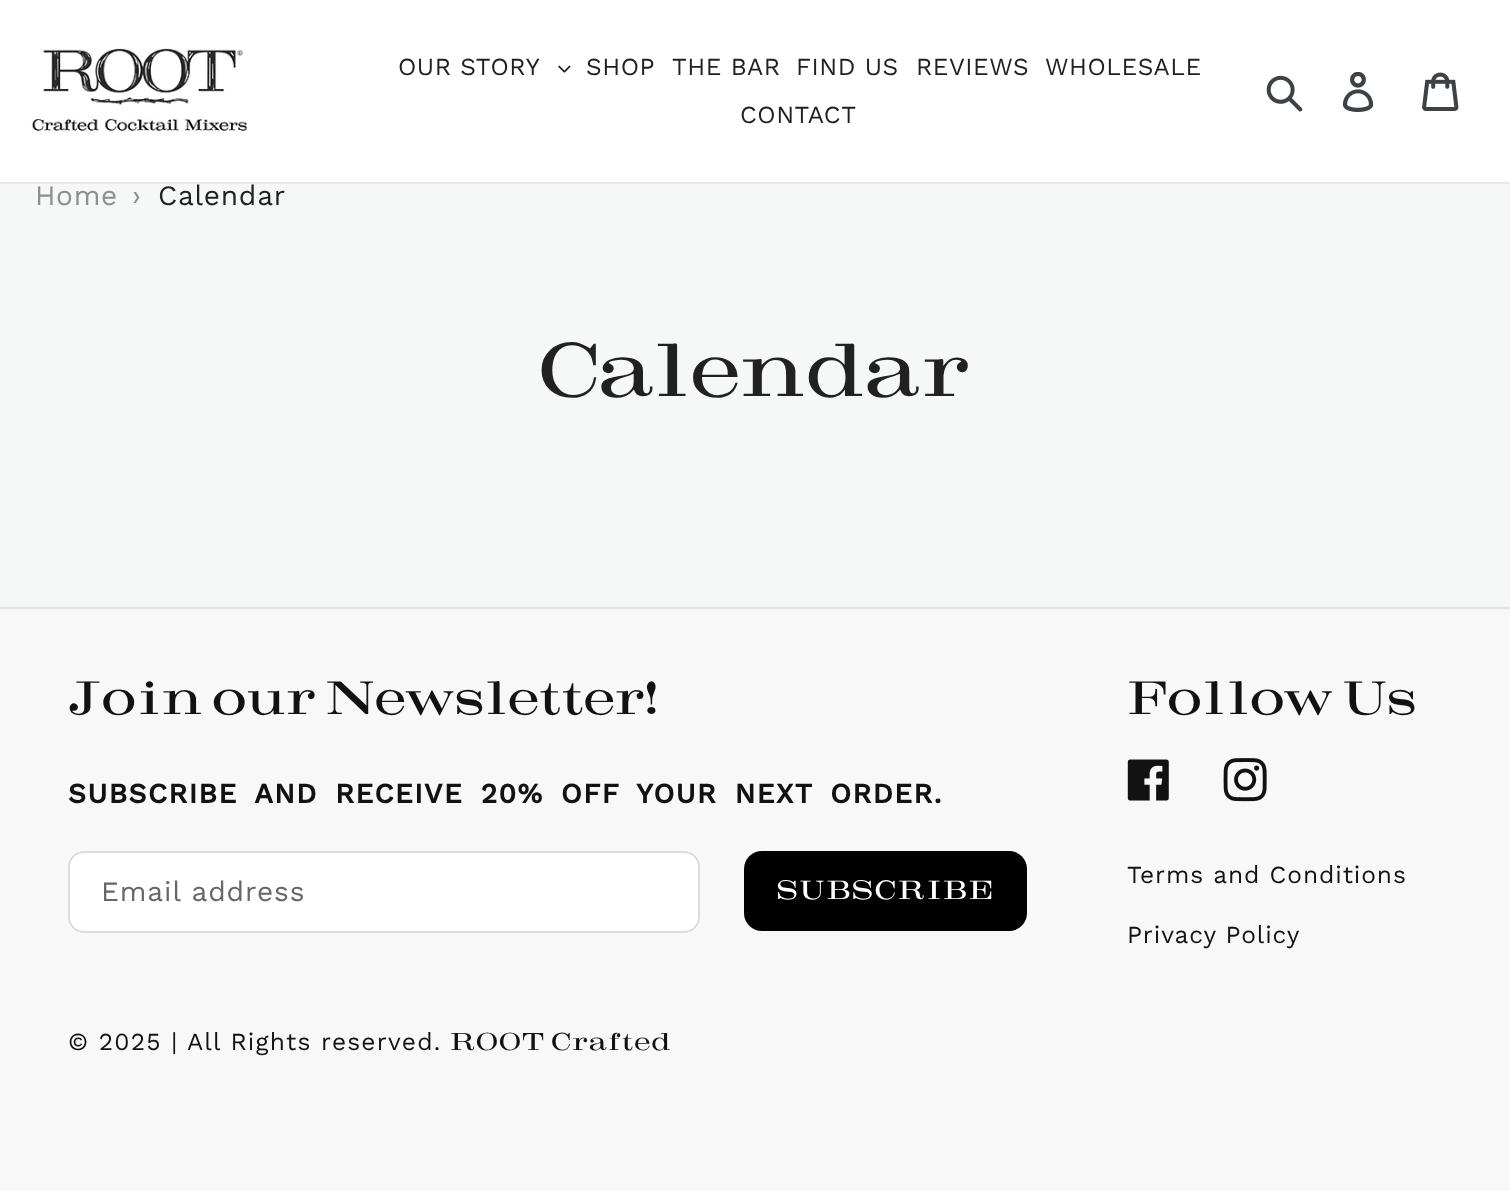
<svg xmlns="http://www.w3.org/2000/svg" width="1510" height="1191" viewBox="0 0 1510 1191">
  <rect width="100%" height="100%" fill="rgb(245,248,246)"/>
  <rect x="0" y="0" width="1510" height="182" fill="rgb(255,255,255)"/>
  <rect x="0" y="182" width="1510" height="2" fill="rgb(232,232,232)"/>
  <image x="30" y="48" width="218" height="85" href="pic1.png"/>
  <text x="398" y="75" font-family="Work Sans" font-size="24.5" letter-spacing="0.5" fill="rgb(33,33,33)">OUR STORY</text>
  <image x="558" y="65" width="13" height="8" href="pic2.png"/>
  <g font-family="Work Sans" font-size="24.5" letter-spacing="0.5" fill="rgb(33,33,33)">
    <text x="586" y="75">SHOP</text>
    <text x="672" y="75">THE BAR</text>
    <text x="796" y="75">FIND US</text>
    <text x="916" y="75">REVIEWS</text>
    <text x="1045" y="75">WHOLESALE</text>
    <text x="740" y="123">CONTACT</text>
  </g>
  <image x="1266" y="75" width="37" height="37" href="pic3.png"/>
  <image x="1342" y="72" width="32" height="40" href="pic4.png"/>
  <image x="1422" y="72" width="37" height="39" href="pic5.png"/>
  <g font-family="Work Sans" font-size="28" letter-spacing="0.75" fill="rgb(142,142,142)">
    <text x="35" y="205">Home</text>
    <text x="132" y="205">›</text>
  </g>
  <text x="158" y="205" font-family="Work Sans" font-size="28" letter-spacing="0.75" fill="rgb(33,33,33)">Calendar</text>
  <text x="539" y="396" font-family="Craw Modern" font-size="70" font-weight="100" fill="rgb(33,33,33)">Calendar</text>
  <rect x="0" y="609" width="1510" height="582" fill="rgb(248,248,248)"/>
  <rect x="0" y="607" width="1510" height="2" fill="rgb(225,226,226)"/>
  <text x="68" y="714" font-family="Craw Modern" font-size="43.75" font-weight="100" fill="rgb(18,18,18)">Join our Newsletter!</text>
  <text x="68" y="803" word-spacing="7" font-family="Work Sans" font-size="28" font-weight="bold" letter-spacing="1.4" fill="rgb(18,18,18)">SUBSCRIBE AND RECEIVE 20% OFF YOUR NEXT ORDER.</text>
  <rect x="69" y="852" width="630" height="80" rx="15" fill="rgb(255,255,255)" stroke="rgb(220,220,220)" stroke-width="2"/>
  <text x="101" y="901" font-family="Work Sans" font-size="28" letter-spacing="0.9" fill="rgb(102,102,102)">Email address</text>
  <rect x="744" y="851" width="283" height="80" rx="18" fill="rgb(1,1,1)"/>
  <text x="777" y="899" font-family="Craw Modern" font-size="24.5" font-weight="100" letter-spacing="2" fill="rgb(255,255,255)">SUBSCRIBE</text>
  <text x="68" y="1050" font-family="Work Sans" font-size="24.5" letter-spacing="1.2" fill="rgb(18,18,18)">© 2025 | All Rights reserved.</text>
  <text x="450" y="1050" font-family="Craw Modern" font-size="22.75" font-weight="100" letter-spacing="1.2" fill="rgb(18,18,18)">ROOT Crafted</text>
  <text x="1127" y="714" font-family="Craw Modern" font-size="43.75" font-weight="100" fill="rgb(18,18,18)">Follow Us</text>
  <image x="1127" y="759" width="42" height="42" href="pic6.png"/>
  <image x="1223" y="758" width="44" height="44" href="pic7.png"/>
  <g font-family="Work Sans" font-size="24.5" letter-spacing="0.9" fill="rgb(18,18,18)">
    <text x="1127" y="883">Terms and Conditions</text>
    <text x="1127" y="943">Privacy Policy</text>
  </g>
</svg>
